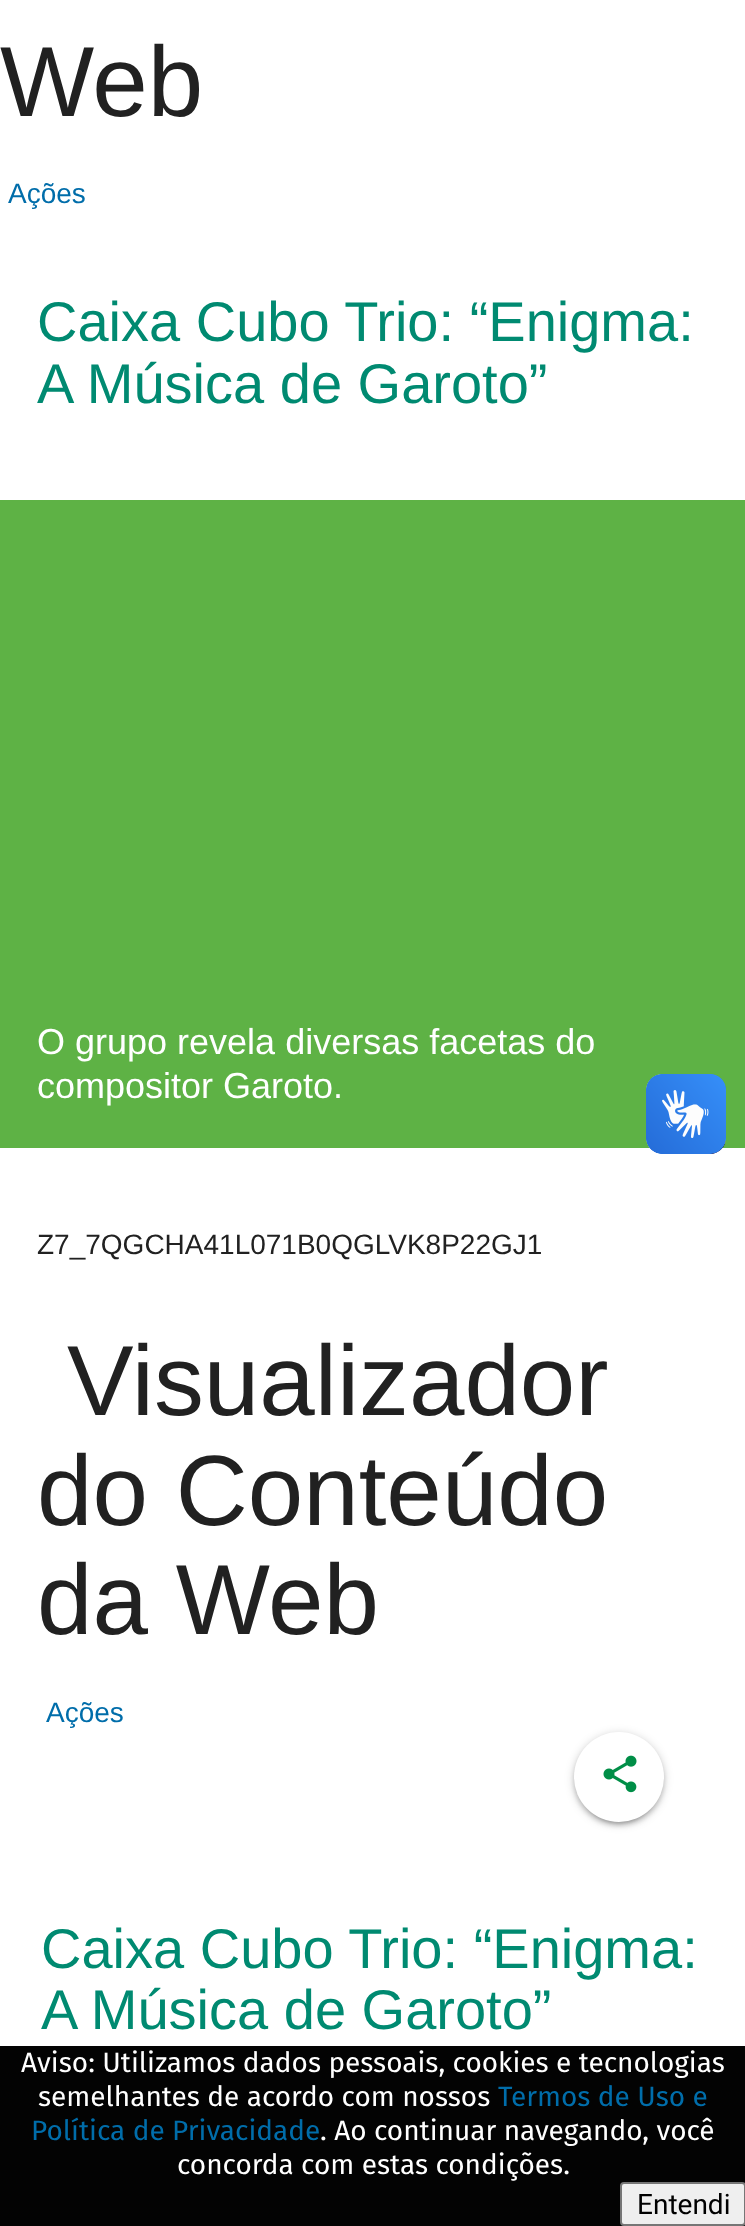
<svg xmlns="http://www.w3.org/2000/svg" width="745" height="2226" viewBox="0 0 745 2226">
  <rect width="100%" height="100%" fill="rgb(255,255,255)"/>
  <text x="0" y="116" font-family="Liberation Sans" font-size="99.75" fill="rgb(33,33,33)">Web</text>
  <text x="8" y="203" font-family="Liberation Sans" font-size="28" fill="rgb(0,109,170)">Ações</text>
  <g font-family="Liberation Sans" font-size="56" fill="rgb(0,138,113)">
    <text>
      <tspan x="37" y="341">Caixa Cubo Trio: “Enigma:</tspan>
      <tspan x="37" y="403">A Música de Garoto”</tspan>
    </text>
  </g>
  <rect x="0" y="500" width="745" height="648" fill="rgb(94,178,69)"/>
  <g font-family="Liberation Sans" font-size="36" fill="rgb(255,255,255)">
    <text>
      <tspan x="37" y="1054">O grupo revela diversas facetas do</tspan>
      <tspan x="37" y="1098">compositor Garoto.</tspan>
    </text>
  </g>
  <text x="37" y="1254" font-family="Liberation Sans" font-size="28" fill="rgb(33,33,33)">Z7_7QGCHA41L071B0QGLVK8P22GJ1</text>
  <g font-family="Liberation Sans" font-size="99.75" fill="rgb(33,33,33)">
    <text x="67" y="1415">Visualizador</text>
    <text>
      <tspan x="37" y="1525">do Conteúdo</tspan>
      <tspan x="37" y="1634">da Web</tspan>
    </text>
  </g>
  <text x="46" y="1722" font-family="Liberation Sans" font-size="28" fill="rgb(0,109,170)">Ações</text>
  <rect x="574" y="1734" width="90" height="90" rx="45" fill="rgba(0,0,0,0.2)" filter="blur(5px)"/>
  <rect x="578" y="1742" width="82" height="82" rx="41" fill="rgba(0,0,0,0.12)" filter="blur(1px)"/>
  <rect x="574" y="1736" width="90" height="90" rx="45" fill="rgba(0,0,0,0.14)" filter="blur(2px)"/>
  <circle cx="619" cy="1777" r="45" fill="rgb(255,255,255)"/>
  <image x="603" y="1755" width="34" height="38" href="pic1.png"/>
  <g font-family="Liberation Sans" font-size="56" fill="rgb(0,138,113)">
    <text>
      <tspan x="41" y="1968">Caixa Cubo Trio: “Enigma:</tspan>
      <tspan x="41" y="2029">A Música de Garoto”</tspan>
    </text>
  </g>
  <image x="646" y="1074" width="80" height="80" href="pic2.png"/>
  <image x="646" y="1074" width="80" height="80" href="pic3.png"/>
  <rect x="0" y="2046" width="745" height="180" fill="rgb(3,3,3)"/>
  <g font-family="Fira Sans" font-size="28" fill="rgb(255,255,255)">
    <text x="21" y="2072">Aviso: Utilizamos dados pessoais, cookies e tecnologias</text>
    <text x="38" y="2106">semelhantes de acordo com nossos</text>
  </g>
  <g font-family="Fira Sans" font-size="28" fill="rgb(0,109,170)">
    <text x="498" y="2106">Termos de Uso e</text>
    <text x="31" y="2140">Política de Privacidade</text>
  </g>
  <g font-family="Fira Sans" font-size="28" fill="rgb(255,255,255)">
    <text x="320" y="2140">. Ao continuar navegando, você</text>
    <text x="177" y="2174">concorda com estas condições.</text>
  </g>
  <rect x="621" y="2183" width="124" height="42" rx="3" fill="rgb(239,239,239)" stroke="rgb(118,118,118)" stroke-width="2"/>
  <text x="637" y="2214" font-family="Roboto" font-size="28" fill="rgb(0,0,0)">Entendi</text>
</svg>
